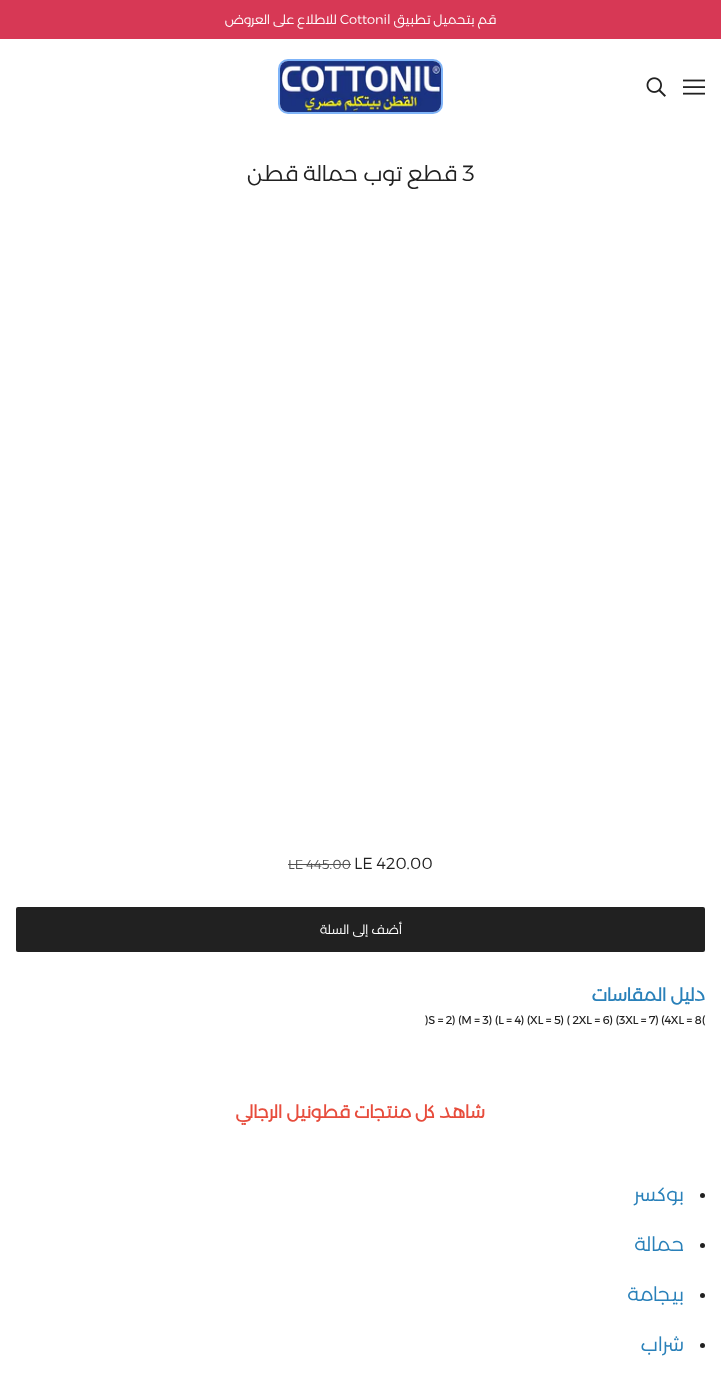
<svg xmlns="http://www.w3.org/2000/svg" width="721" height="1393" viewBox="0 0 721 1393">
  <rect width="100%" height="100%" fill="rgb(255,255,255)"/>
  <rect x="0" y="0" width="721" height="39" fill="rgb(215,56,85)"/>
  <text x="496" y="24" font-family="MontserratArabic" font-size="13" font-weight="300" direction="rtl" fill="rgb(255,255,255)">قم بتحميل تطبيق</text>
  <text x="340" y="24" font-family="MontserratArabic" font-size="13" font-weight="300" fill="rgb(255,255,255)">Cottonil</text>
  <text x="337" y="24" font-family="MontserratArabic" font-size="13" font-weight="300" direction="rtl" fill="rgb(255,255,255)">للاطلاع على العروض</text>
  <image x="683" y="79" width="22" height="16" href="pic1.png"/>
  <image x="646" y="77" width="20" height="20" href="pic2.png"/>
  <rect x="279" y="60" width="163" height="53" rx="9" fill="none" stroke="rgb(127,180,248)" stroke-width="2"/>
  <image x="280" y="61" width="161" height="51" href="pic3.png"/>
  <text x="462" y="181" font-family="MontserratArabic" font-size="22" font-weight="300" fill="rgb(33,33,33)">3</text>
  <text x="457" y="181" font-family="MontserratArabic" font-size="22" font-weight="300" direction="rtl" fill="rgb(33,33,33)">قطع توب حمالة قطن</text>
  <text x="354" y="869" font-family="MontserratArabic" font-size="16" font-weight="300" fill="rgb(33,33,33)">LE 420.00</text>
  <text x="288" y="869" font-family="MontserratArabic" font-size="13" font-weight="300" fill="rgb(81,81,81)">LE 445.00</text>
  <rect x="288" y="864" width="63" height="1" fill="rgb(81,81,81)"/>
  <rect x="16" y="907" width="689" height="45" rx="2" fill="rgb(33,33,33)"/>
  <text x="402" y="934" font-family="MontserratArabic" font-size="13" font-weight="300" direction="rtl" fill="rgb(255,255,255)">أضف إلى السلة</text>
  <text x="705" y="1001" font-family="MontserratArabic" font-size="18" font-weight="bold" direction="rtl" fill="rgb(41,128,185)">دليل المقاسات</text>
  <text x="425" y="1024" font-family="MontserratArabic" font-size="11" font-weight="bold" fill="rgb(33,33,33)">)S = 2) (M = 3) (L = 4) (XL = 5) ( 2XL = 6) (3XL = 7) (4XL = 8(</text>
  <text x="485" y="1118" font-family="MontserratArabic" font-size="18" font-weight="bold" direction="rtl" fill="rgb(231,76,60)">شاهد كل منتجات قطونيل الرجالي</text>
  <circle cx="702.5" cy="1195.5" r="2.5" fill="rgb(33,33,33)"/>
  <text x="684" y="1201" font-family="MontserratArabic" font-size="20" font-weight="300" direction="rtl" fill="rgb(41,128,185)">بوكسر</text>
  <circle cx="702.5" cy="1245.5" r="2.5" fill="rgb(33,33,33)"/>
  <text x="684" y="1251" font-family="MontserratArabic" font-size="20" font-weight="300" direction="rtl" fill="rgb(41,128,185)">حمالة</text>
  <circle cx="702.5" cy="1295.5" r="2.5" fill="rgb(33,33,33)"/>
  <text x="684" y="1301" font-family="MontserratArabic" font-size="20" font-weight="300" direction="rtl" fill="rgb(41,128,185)">بيجامة</text>
  <circle cx="702.5" cy="1345.5" r="2.5" fill="rgb(33,33,33)"/>
  <text x="684" y="1351" font-family="MontserratArabic" font-size="20" font-weight="300" direction="rtl" fill="rgb(41,128,185)">شراب</text>
</svg>
